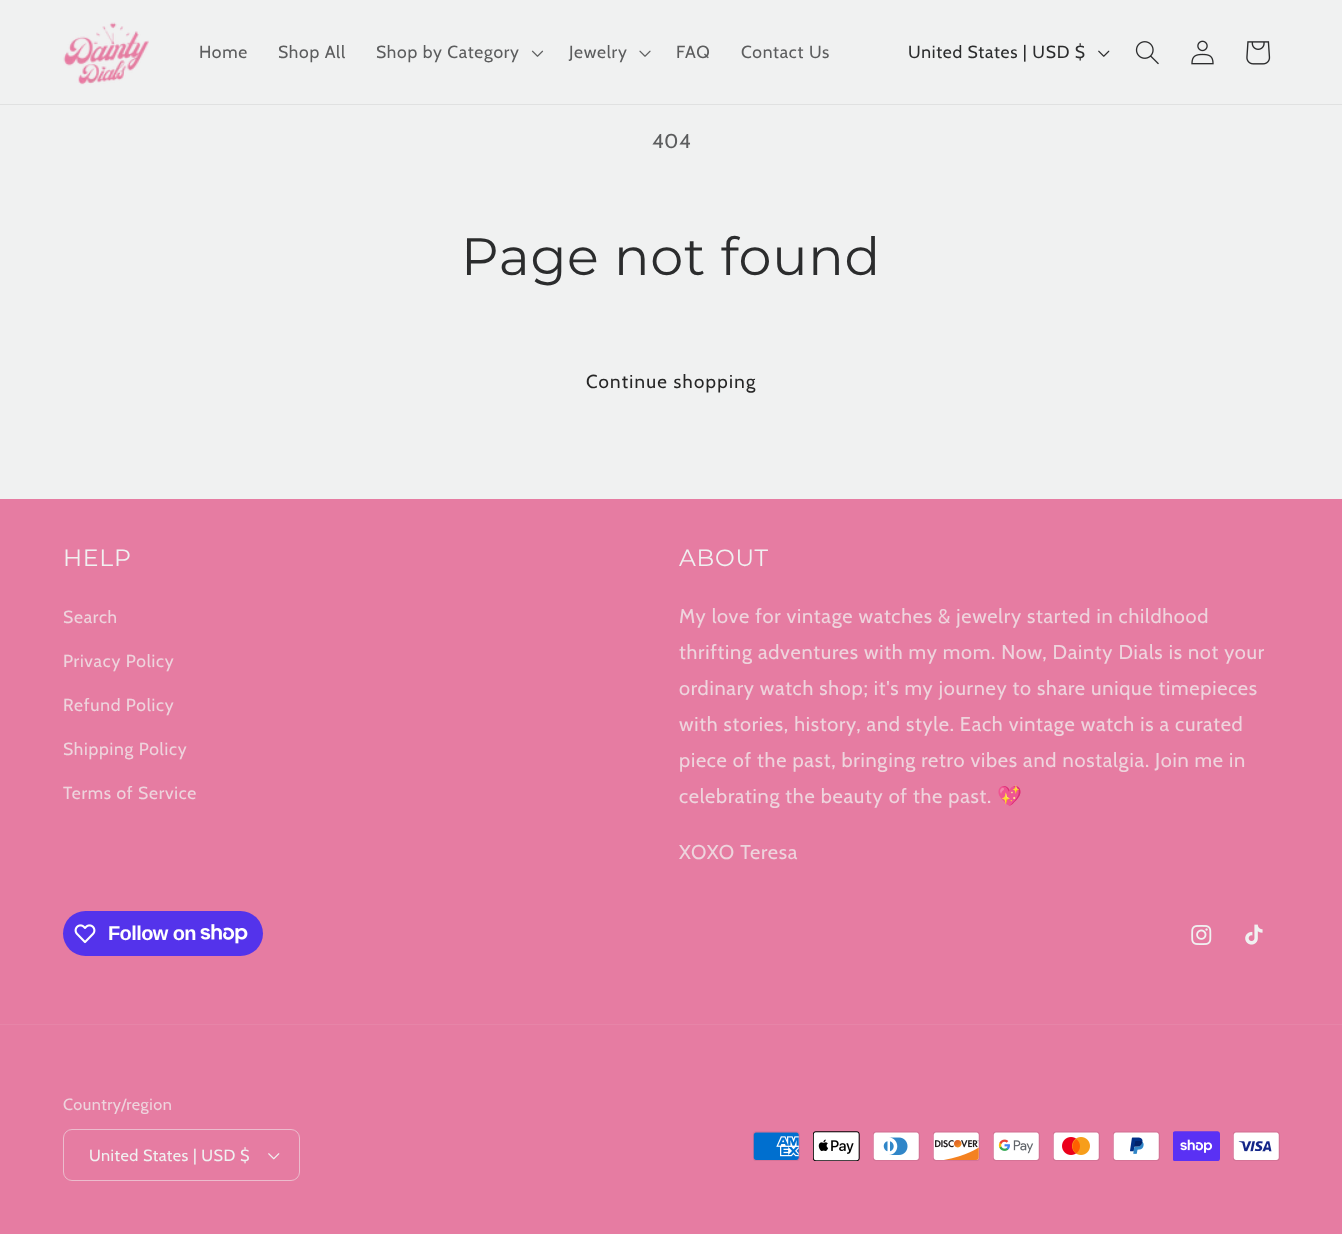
<svg xmlns="http://www.w3.org/2000/svg" width="1342" height="1234" viewBox="0 0 1342 1234">
  <rect width="100%" height="100%" fill="rgb(240,241,241)"/>
  <rect x="0" y="104" width="1342" height="1" fill="rgb(224,225,225)"/>
  <image x="63" y="22" width="86" height="63" href="pic1.png"/>
  <g font-family="Cabin" font-size="17.5" letter-spacing="0.75" fill="rgb(92,93,94)">
    <text x="199" y="58">Home</text>
    <text x="278" y="58">Shop All</text>
    <text x="376" y="58">Shop by Category</text>
  </g>
  <image x="531" y="50" width="13" height="7" href="pic2.png"/>
  <text x="569" y="58" font-family="Cabin" font-size="17.5" letter-spacing="0.75" fill="rgb(92,93,94)">Jewelry</text>
  <image x="639" y="50" width="12" height="7" href="pic3.png"/>
  <g font-family="Cabin" font-size="17.5" letter-spacing="0.75" fill="rgb(92,93,94)">
    <text x="676" y="58">FAQ</text>
    <text x="741" y="58">Contact Us</text>
  </g>
  <text x="908" y="58" font-family="Cabin" font-size="17.5" letter-spacing="0.75" fill="rgb(43,44,45)">United States | USD $</text>
  <image x="1098" y="50" width="12" height="7" href="pic4.png"/>
  <image x="1135" y="41" width="24" height="24" href="pic5.png"/>
  <image x="1191" y="40" width="23" height="25" href="pic6.png"/>
  <image x="1246" y="41" width="25" height="24" href="pic7.png"/>
  <text x="652" y="148" font-family="Cabin" font-size="20" letter-spacing="0.75" fill="rgb(92,93,94)">404</text>
  <text x="461" y="275" font-family="Montserrat" font-size="52.5" letter-spacing="0.75" fill="rgb(43,44,45)">Page not found</text>
  <text x="586" y="388" font-family="Cabin" font-size="18.75" letter-spacing="1.25" fill="rgb(38,38,38)">Continue shopping</text>
  <rect x="0" y="499" width="1342" height="735" fill="rgb(230,124,162)"/>
  <text x="63" y="566" font-family="Montserrat" font-size="23.5" letter-spacing="0.75" fill="rgb(240,241,241)">HELP</text>
  <g font-family="Cabin" font-size="17.5" letter-spacing="0.75" fill="rgb(238,212,221)">
    <text x="63" y="623">Search</text>
    <text x="63" y="667">Privacy Policy</text>
    <text x="63" y="711">Refund Policy</text>
    <text x="63" y="755">Shipping Policy</text>
    <text x="63" y="799">Terms of Service</text>
  </g>
  <text x="679" y="566" font-family="Montserrat" font-size="23.5" letter-spacing="0.75" fill="rgb(240,241,241)">ABOUT</text>
  <g font-family="Cabin" font-size="20" letter-spacing="0.75" fill="rgb(238,212,221)">
    <text>
      <tspan x="679" y="623">My love for vintage watches &amp; jewelry started in childhood</tspan>
      <tspan x="679" y="659">thrifting adventures with my mom. Now, Dainty Dials is not your</tspan>
      <tspan x="679" y="695">ordinary watch shop; it's my journey to share unique timepieces</tspan>
      <tspan x="679" y="731">with stories, history, and style. Each vintage watch is a curated</tspan>
      <tspan x="679" y="767">piece of the past, bringing retro vibes and nostalgia. Join me in</tspan>
      <tspan x="679" y="803">celebrating the beauty of the past.</tspan>
    </text>
  </g>
  <text x="997" y="803" font-family="Noto Color Emoji" font-size="20" letter-spacing="0.75" fill="rgb(238,212,221)">💖</text>
  <text x="679" y="859" font-family="Cabin" font-size="20" letter-spacing="0.75" fill="rgb(238,212,221)">XOXO Teresa</text>
  <rect x="63" y="911" width="200" height="45" rx="22.5" fill="rgb(84,51,235)"/>
  <image x="74" y="924" width="22" height="20" href="pic8.png"/>
  <text x="108" y="940" font-family="Liberation Sans" font-size="20" font-weight="bold" letter-spacing="-0.6" fill="rgb(255,255,255)">Follow on</text>
  <image x="200" y="924" width="48" height="20" href="pic9.png"/>
  <image x="1191" y="925" width="21" height="20" href="pic10.png"/>
  <image x="1245" y="924" width="18" height="21" href="pic11.png"/>
  <rect x="0" y="1024" width="1342" height="1" fill="rgb(231,133,168)"/>
  <text x="63" y="1110" font-family="Cabin" font-size="16.25" letter-spacing="0.5" fill="rgb(238,212,221)">Country/region</text>
  <image x="268" y="1153" width="12" height="7" href="pic12.png"/>
  <rect x="63.5" y="1129.5" width="236" height="51" rx="8.5" fill="none" stroke="rgb(236,188,205)"/>
  <text x="89" y="1161" font-family="Cabin" font-size="16.25" letter-spacing="0.5" fill="rgb(240,241,241)">United States | USD $</text>
  <image x="753" y="1131" width="47" height="30" href="pic13.png"/>
  <image x="813" y="1131" width="47" height="30" href="pic14.png"/>
  <image x="873" y="1131" width="47" height="30" href="pic15.png"/>
  <image x="933" y="1131" width="47" height="30" href="pic16.png"/>
  <image x="993" y="1131" width="47" height="30" href="pic17.png"/>
  <image x="1053" y="1131" width="47" height="30" href="pic18.png"/>
  <image x="1113" y="1131" width="47" height="30" href="pic19.png"/>
  <image x="1173" y="1131" width="47" height="30" href="pic20.png"/>
  <image x="1233" y="1131" width="47" height="30" href="pic21.png"/>
</svg>
